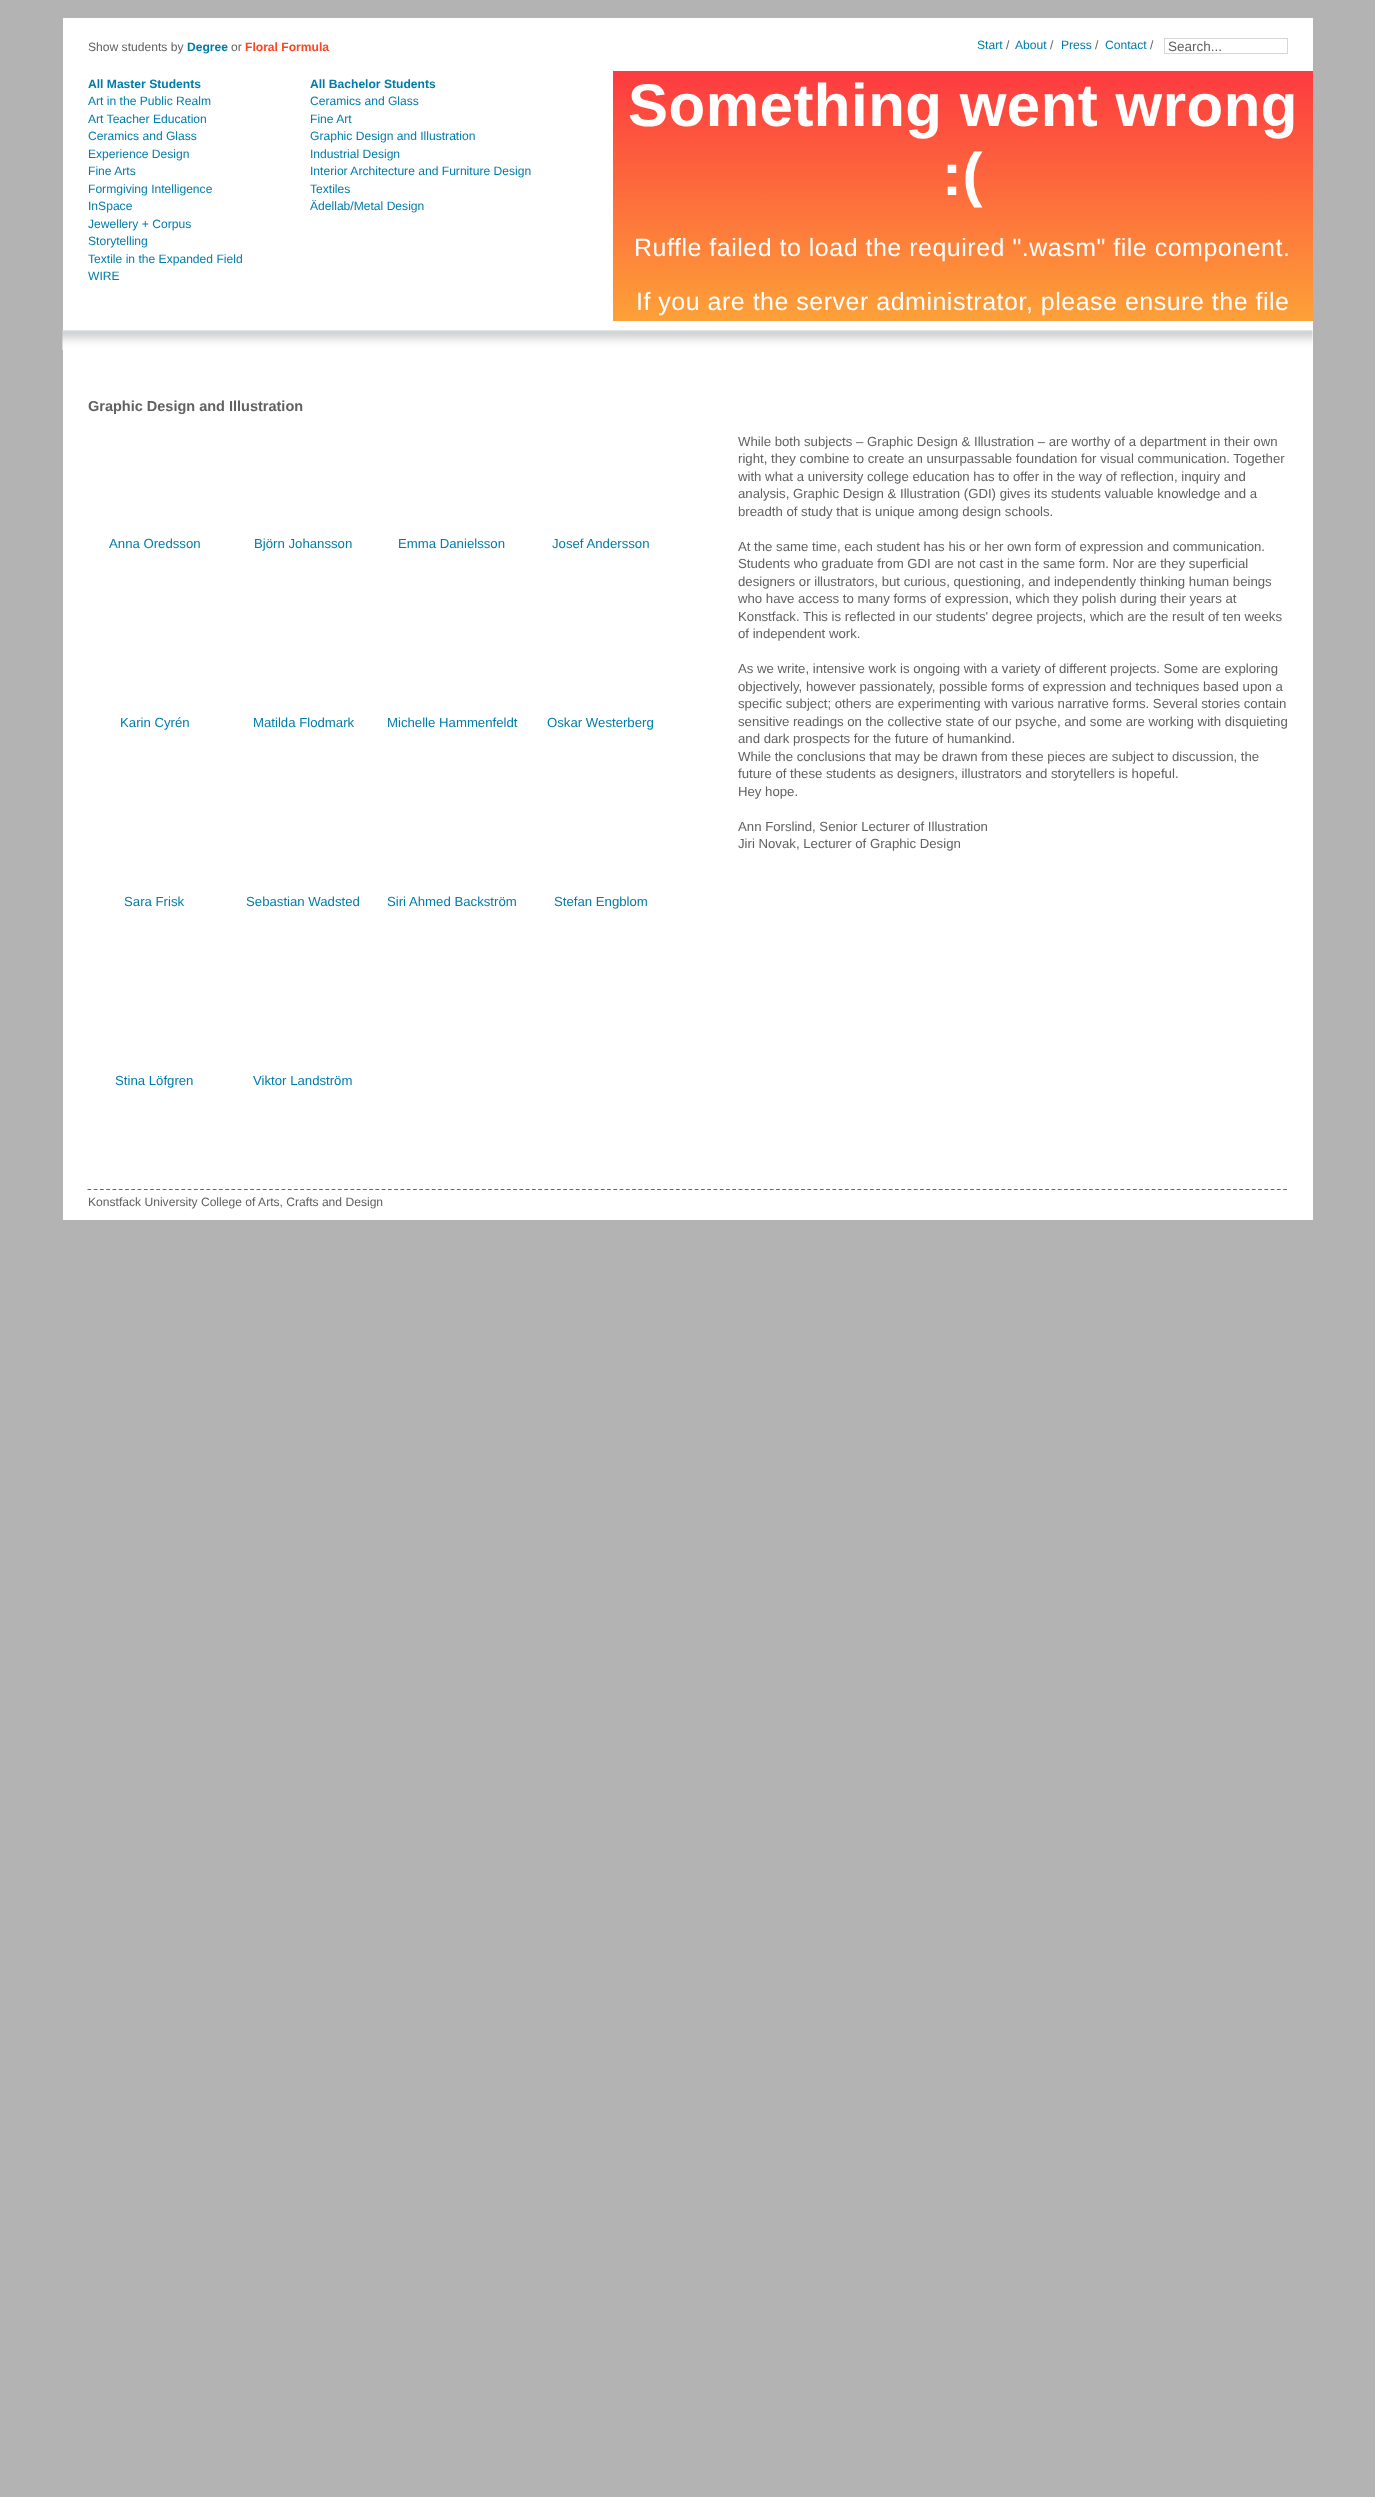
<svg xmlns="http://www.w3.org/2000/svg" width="1375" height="2497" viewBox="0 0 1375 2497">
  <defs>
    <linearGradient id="g1" gradientUnits="userSpaceOnUse" x1="963" y1="71" x2="963" y2="321"><stop offset="0" stop-color="rgb(253,58,64)"/><stop offset="1" stop-color="rgb(253,161,56)"/></linearGradient>
  </defs>
  <rect width="100%" height="100%" fill="rgb(179,179,179)"/>
  <rect x="63" y="18" width="1250" height="1202" fill="rgb(255,255,255)"/>
  <text x="88" y="51" font-family="Liberation Sans" font-size="12.1" fill="rgb(97,97,97)">Show students by</text>
  <text x="187" y="51" font-family="Liberation Sans" font-size="12.1" font-weight="bold" fill="rgb(0,124,170)">Degree</text>
  <text x="231" y="51" font-family="Liberation Sans" font-size="12.1" fill="rgb(97,97,97)">or</text>
  <text x="245" y="51" font-family="Liberation Sans" font-size="12.1" font-weight="bold" fill="rgb(255,68,34)">Floral Formula</text>
  <text x="88" y="88" font-family="Liberation Sans" font-size="12.1" font-weight="bold" fill="rgb(0,124,170)">All Master Students</text>
  <g font-family="Liberation Sans" font-size="12.1" fill="rgb(0,124,170)">
    <text>
      <tspan x="88" y="105">Art in the Public Realm</tspan>
      <tspan x="88" y="123">Art Teacher Education</tspan>
      <tspan x="88" y="140">Ceramics and Glass</tspan>
      <tspan x="88" y="158">Experience Design</tspan>
      <tspan x="88" y="175">Fine Arts</tspan>
      <tspan x="88" y="193">Formgiving Intelligence</tspan>
      <tspan x="88" y="210">InSpace</tspan>
      <tspan x="88" y="228">Jewellery + Corpus</tspan>
      <tspan x="88" y="245">Storytelling</tspan>
      <tspan x="88" y="263">Textile in the Expanded Field</tspan>
      <tspan x="88" y="280">WIRE</tspan>
    </text>
  </g>
  <text x="310" y="88" font-family="Liberation Sans" font-size="12.1" font-weight="bold" fill="rgb(0,124,170)">All Bachelor Students</text>
  <g font-family="Liberation Sans" font-size="12.1" fill="rgb(0,124,170)">
    <text>
      <tspan x="310" y="105">Ceramics and Glass</tspan>
      <tspan x="310" y="123">Fine Art</tspan>
      <tspan x="310" y="140">Graphic Design and Illustration</tspan>
      <tspan x="310" y="158">Industrial Design</tspan>
      <tspan x="310" y="175">Interior Architecture and Furniture Design</tspan>
      <tspan x="310" y="193">Textiles</tspan>
      <tspan x="310" y="210">Ädellab/Metal Design</tspan>
    </text>
    <text x="977" y="49">Start</text>
  </g>
  <text x="1006" y="49" font-family="Liberation Sans" font-size="12.1" fill="rgb(97,97,97)">/</text>
  <text x="1015" y="49" font-family="Liberation Sans" font-size="12.1" fill="rgb(0,124,170)">About</text>
  <text x="1050" y="49" font-family="Liberation Sans" font-size="12.1" fill="rgb(97,97,97)">/</text>
  <text x="1061" y="49" font-family="Liberation Sans" font-size="12.1" fill="rgb(0,124,170)">Press</text>
  <text x="1095" y="49" font-family="Liberation Sans" font-size="12.1" fill="rgb(97,97,97)">/</text>
  <text x="1105" y="49" font-family="Liberation Sans" font-size="12.1" fill="rgb(0,124,170)">Contact</text>
  <text x="1150" y="49" font-family="Liberation Sans" font-size="12.1" fill="rgb(97,97,97)">/</text>
  <rect x="1164.5" y="38.5" width="123" height="15" fill="none" stroke="rgb(214,214,214)"/>
  <text x="1168" y="51" font-family="Liberation Sans" font-size="13.5" fill="rgb(97,97,97)">Search...</text>
  <rect x="613" y="71" width="700" height="250" fill="url(#g1)"/>
  <g font-family="Liberation Sans" font-size="60" font-weight="bold" letter-spacing="0.5" fill="rgb(255,255,255)">
    <text x="628" y="126">Something went wrong</text>
    <text x="942" y="195">:(</text>
  </g>
  <g font-family="Liberation Sans" font-size="25" letter-spacing="0.5" fill="rgb(255,255,255)">
    <text x="634" y="256">Ruffle failed to load the required ".wasm" file component.</text>
    <text x="636" y="310">If you are the server administrator, please ensure the file</text>
  </g>
  <image x="62" y="330" width="1251" height="20" href="pic1.png"/>
  <text x="88" y="411" font-family="Liberation Sans" font-size="14.5" font-weight="bold" fill="rgb(97,97,97)">Graphic Design and Illustration</text>
  <g font-family="Liberation Sans" font-size="13.2" fill="rgb(0,124,170)">
    <text x="109" y="548">Anna Oredsson</text>
    <text x="254" y="548">Björn Johansson</text>
    <text x="398" y="548">Emma Danielsson</text>
    <text x="552" y="548">Josef Andersson</text>
    <text x="120" y="727">Karin Cyrén</text>
    <text x="253" y="727">Matilda Flodmark</text>
    <text x="387" y="727">Michelle Hammenfeldt</text>
    <text x="547" y="727">Oskar Westerberg</text>
    <text x="124" y="906">Sara Frisk</text>
    <text x="246" y="906">Sebastian Wadsted</text>
    <text x="387" y="906">Siri Ahmed Backström</text>
    <text x="554" y="906">Stefan Engblom</text>
    <text x="115" y="1085">Stina Löfgren</text>
    <text x="253" y="1085">Viktor Landström</text>
  </g>
  <g font-family="Liberation Sans" font-size="13.2" fill="rgb(97,97,97)">
    <text>
      <tspan x="738" y="446">While both subjects – Graphic Design &amp; Illustration – are worthy of a department in their own</tspan>
      <tspan x="738" y="463">right, they combine to create an unsurpassable foundation for visual communication. Together</tspan>
      <tspan x="738" y="481">with what a university college education has to offer in the way of reflection, inquiry and</tspan>
      <tspan x="738" y="498">analysis, Graphic Design &amp; Illustration (GDI) gives its students valuable knowledge and a</tspan>
      <tspan x="738" y="516">breadth of study that is unique among design schools.</tspan>
    </text>
    <text>
      <tspan x="738" y="551">At the same time, each student has his or her own form of expression and communication.</tspan>
      <tspan x="738" y="568">Students who graduate from GDI are not cast in the same form. Nor are they superficial</tspan>
      <tspan x="738" y="586">designers or illustrators, but curious, questioning, and independently thinking human beings</tspan>
      <tspan x="738" y="603">who have access to many forms of expression, which they polish during their years at</tspan>
      <tspan x="738" y="621">Konstfack. This is reflected in our students' degree projects, which are the result of ten weeks</tspan>
      <tspan x="738" y="638">of independent work.</tspan>
    </text>
    <text>
      <tspan x="738" y="673">As we write, intensive work is ongoing with a variety of different projects. Some are exploring</tspan>
      <tspan x="738" y="691">objectively, however passionately, possible forms of expression and techniques based upon a</tspan>
      <tspan x="738" y="708">specific subject; others are experimenting with various narrative forms. Several stories contain</tspan>
      <tspan x="738" y="726">sensitive readings on the collective state of our psyche, and some are working with disquieting</tspan>
      <tspan x="738" y="743">and dark prospects for the future of humankind.</tspan>
      <tspan x="738" y="761">While the conclusions that may be drawn from these pieces are subject to discussion, the</tspan>
      <tspan x="738" y="778">future of these students as designers, illustrators and storytellers is hopeful.</tspan>
      <tspan x="738" y="796">Hey hope.</tspan>
    </text>
    <text>
      <tspan x="738" y="831">Ann Forslind, Senior Lecturer of Illustration</tspan>
      <tspan x="738" y="848">Jiri Novak, Lecturer of Graphic Design</tspan>
    </text>
  </g>
  <path d="M87.5 1189.5H1287.5" fill="none" stroke="rgb(102,102,102)" stroke-width="1.2" stroke-dasharray="3.75 2.51"/>
  <text x="88" y="1206" font-family="Liberation Sans" font-size="12.1" fill="rgb(97,97,97)">Konstfack University College of Arts, Crafts and Design</text>
</svg>
